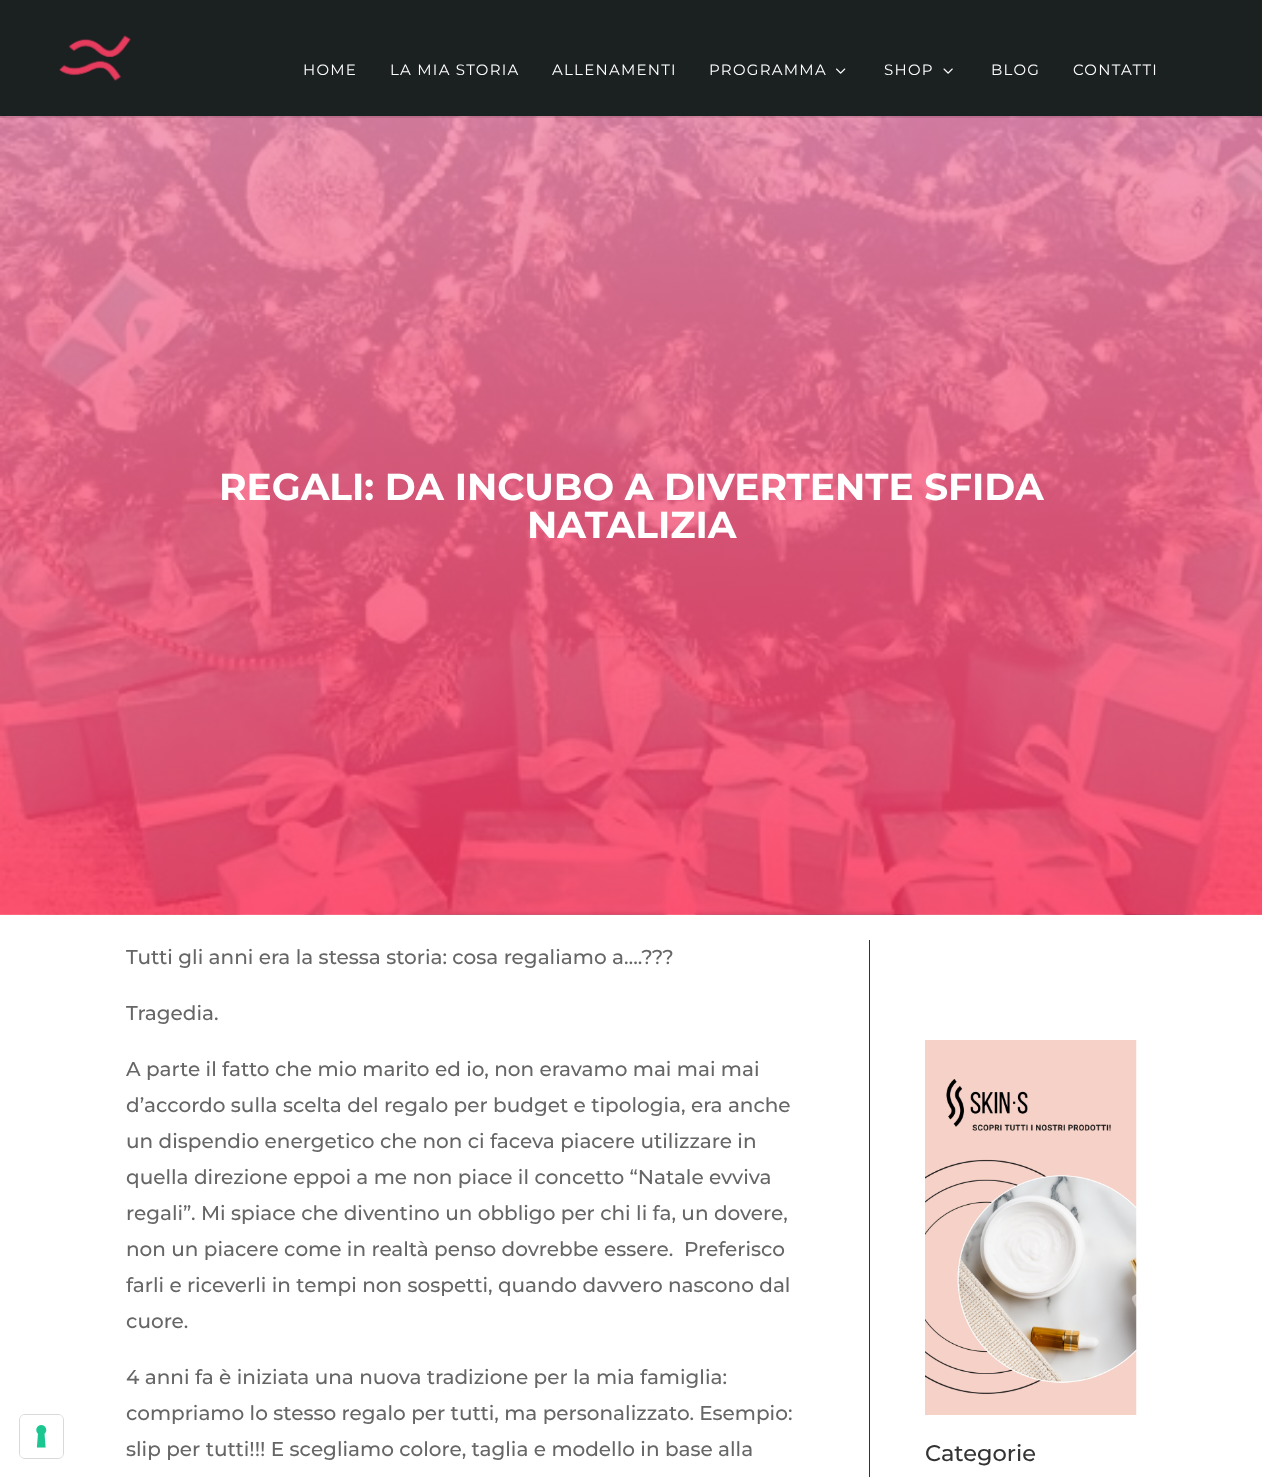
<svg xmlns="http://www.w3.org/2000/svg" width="1262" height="1477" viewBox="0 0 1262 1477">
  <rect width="100%" height="100%" fill="rgb(255,255,255)"/>
  <rect x="19.5" y="1414.5" width="44" height="44" rx="5.5" fill="none" stroke="rgb(217,217,217)"/>
  <rect x="20" y="1415" width="43" height="43" rx="5" fill="rgb(255,255,255)"/>
  <image x="36" y="1425" width="11" height="23" href="pic1.png"/>
  <image x="0" y="116" width="1262" height="799" href="pic5.png"/>
  <path d="M0 116V118H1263V1H1262V116Z" fill="rgba(0,0,0,0.1)"/>
  <rect x="0" y="0" width="1262" height="116" fill="rgb(27,32,33)"/>
  <image x="59" y="35" width="73" height="46" href="pic2.png"/>
  <g font-family="Montserrat" font-size="15" letter-spacing="1.25" fill="rgb(255,255,255)">
    <text x="303" y="75">HOME</text>
    <text x="390" y="75">LA MIA STORIA</text>
    <text x="552" y="75">ALLENAMENTI</text>
    <text x="709" y="75">PROGRAMMA</text>
  </g>
  <image x="836" y="68" width="10" height="6" href="pic3.png"/>
  <text x="884" y="75" font-family="Montserrat" font-size="15" letter-spacing="1.25" fill="rgb(255,255,255)">SHOP</text>
  <image x="943" y="68" width="10" height="6" href="pic4.png"/>
  <g font-family="Montserrat" font-size="15" letter-spacing="1.25" fill="rgb(255,255,255)">
    <text x="991" y="75">BLOG</text>
    <text x="1073" y="75">CONTATTI</text>
  </g>
  <g font-family="Montserrat" font-size="37.5" font-weight="bold" fill="rgb(255,255,255)">
    <text x="219" y="500">REGALI: DA INCUBO A DIVERTENTE SFIDA</text>
    <text x="527" y="538">NATALIZIA</text>
  </g>
  <rect x="869" y="940" width="1" height="537" fill="rgb(51,51,51)"/>
  <g font-family="Montserrat" font-size="20" font-weight="500" fill="rgb(102,102,102)">
    <text x="126" y="964">Tutti gli anni era la stessa storia: cosa regaliamo a….???</text>
    <text x="126" y="1020">Tragedia.</text>
    <text xml:space="preserve"><tspan x="126" y="1076">A parte il fatto che mio marito ed io, non eravamo mai mai mai</tspan><tspan x="126" y="1112">d’accordo sulla scelta del regalo per budget e tipologia, era anche</tspan><tspan x="126" y="1148">un dispendio energetico che non ci faceva piacere utilizzare in</tspan><tspan x="126" y="1184">quella direzione eppoi a me non piace il concetto “Natale evviva</tspan><tspan x="126" y="1220">regali”. Mi spiace che diventino un obbligo per chi li fa, un dovere,</tspan><tspan x="126" y="1256">non un piacere come in realtà penso dovrebbe essere.  Preferisco</tspan><tspan x="126" y="1292">farli e riceverli in tempi non sospetti, quando davvero nascono dal</tspan><tspan x="126" y="1328">cuore.</tspan></text>
    <text>
      <tspan x="126" y="1384">4 anni fa è iniziata una nuova tradizione per la mia famiglia:</tspan>
      <tspan x="126" y="1420">compriamo lo stesso regalo per tutti, ma personalizzato. Esempio:</tspan>
      <tspan x="126" y="1456">slip per tutti!!! E scegliamo colore, taglia e modello in base alla</tspan>
    </text>
  </g>
  <image x="925" y="1040" width="212" height="375" href="pic6.png"/>
  <text x="925" y="1461" font-family="Montserrat" font-size="22.5" font-weight="500" fill="rgb(51,51,51)">Categorie</text>
</svg>
